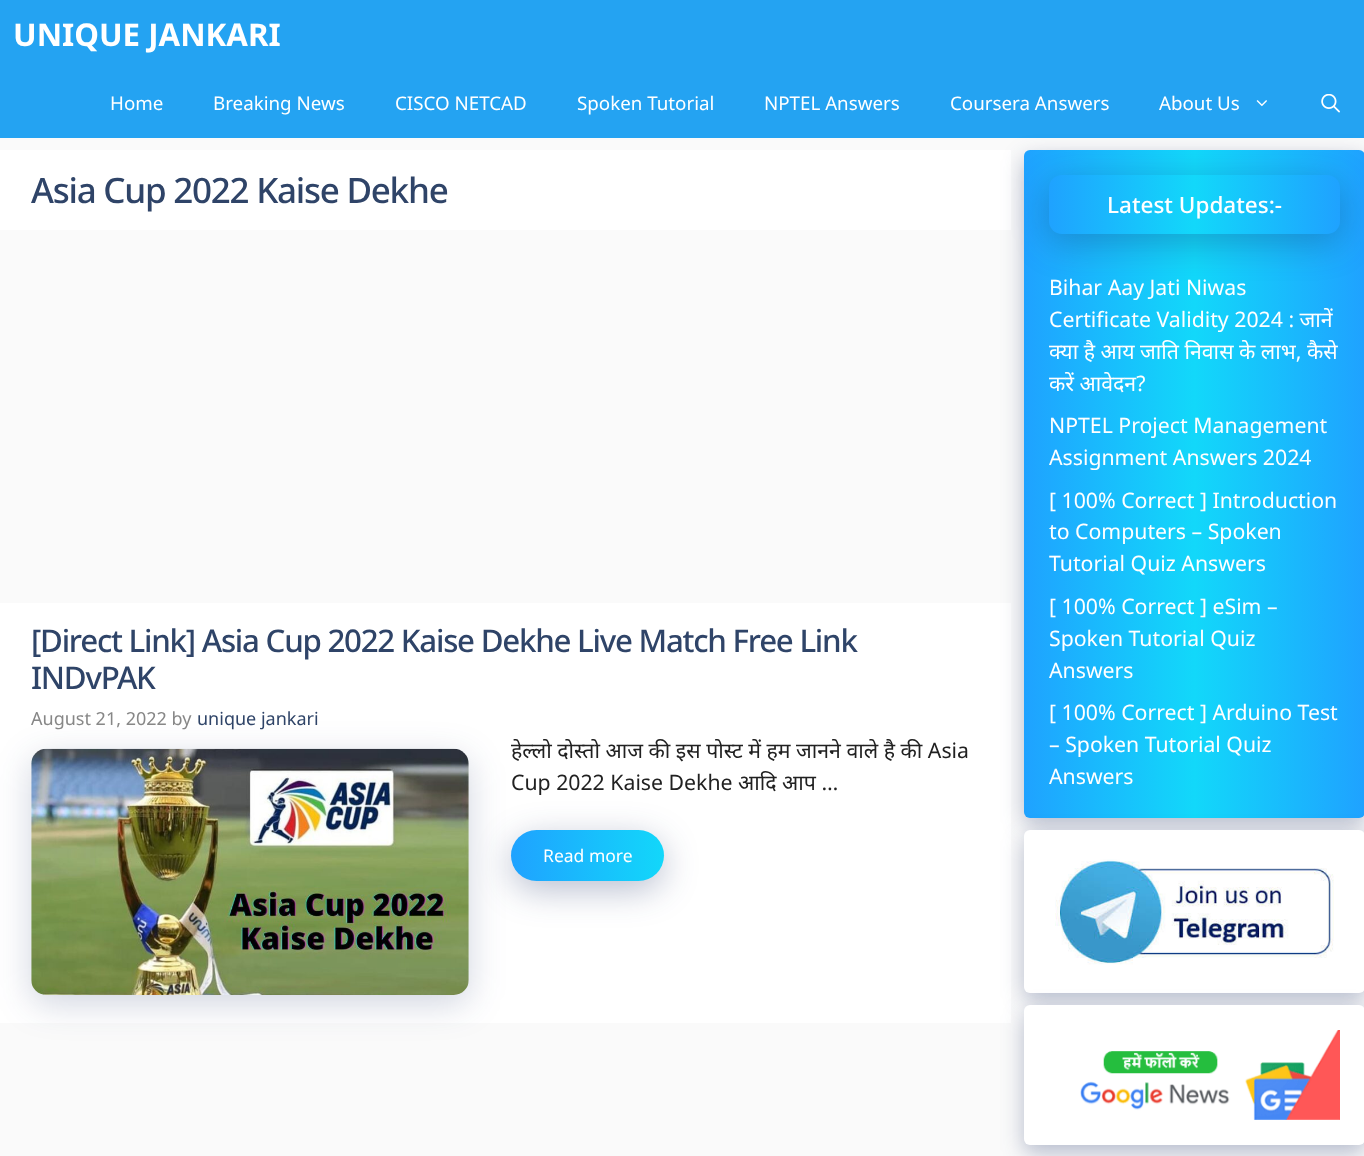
<svg xmlns="http://www.w3.org/2000/svg" width="1364" height="1156" viewBox="0 0 1364 1156">
  <defs>
    <linearGradient id="g1" gradientUnits="userSpaceOnUse" x1="511" y1="856" x2="816" y2="856"><stop offset="0" stop-color="rgb(31,162,255)"/><stop offset="0.51" stop-color="rgb(18,216,250)"/><stop offset="1" stop-color="rgb(31,162,255)"/></linearGradient>
    <linearGradient id="g2" gradientUnits="userSpaceOnUse" x1="1024" y1="484" x2="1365" y2="484"><stop offset="0" stop-color="rgb(31,162,255)"/><stop offset="0.5" stop-color="rgb(18,216,250)"/><stop offset="1" stop-color="rgb(31,162,255)"/></linearGradient>
    <linearGradient id="g3" gradientUnits="userSpaceOnUse" x1="1049" y1="204" x2="1340" y2="204"><stop offset="0" stop-color="rgb(31,162,255)"/><stop offset="0.5" stop-color="rgb(18,216,250)"/><stop offset="1" stop-color="rgb(31,162,255)"/></linearGradient>
  </defs>
  <rect width="100%" height="100%" fill="rgb(250,250,250)"/>
  <rect x="0" y="0" width="1364" height="138" fill="rgb(36,163,242)"/>
  <text x="13" y="46" font-family="Noto Sans" font-size="31.25" font-weight="bold" fill="rgb(255,255,255)">UNIQUE JANKARI</text>
  <g font-family="Noto Sans" font-size="18.75" fill="rgb(255,255,255)">
    <text x="110" y="110">Home</text>
    <text x="213" y="110">Breaking News</text>
    <text x="395" y="110">CISCO NETCAD</text>
    <text x="577" y="110">Spoken Tutorial</text>
    <text x="764" y="110">NPTEL Answers</text>
    <text x="950" y="110">Coursera Answers</text>
    <text x="1159" y="110">About Us</text>
  </g>
  <image x="1256" y="100" width="11" height="7" href="pic1.png"/>
  <image x="1321" y="94" width="19" height="19" href="pic2.png"/>
  <rect x="0" y="150" width="1011" height="80" fill="rgb(255,255,255)"/>
  <text x="31" y="203" font-family="Noto Sans" font-size="35" font-weight="500" letter-spacing="-1.25" fill="rgb(47,68,104)">Asia Cup 2022 Kaise Dekhe</text>
  <rect x="0" y="603" width="1011" height="420" fill="rgb(255,255,255)"/>
  <g font-family="Noto Sans" font-size="31.25" font-weight="500" letter-spacing="-1.25" fill="rgb(47,68,104)">
    <text>
      <tspan x="31" y="652">[Direct Link] Asia Cup 2022 Kaise Dekhe Live Match Free Link</tspan>
      <tspan x="31" y="689">INDvPAK</tspan>
    </text>
  </g>
  <rect x="31" y="758" width="438" height="246" rx="15" fill="rgba(23,43,99,0.2)" filter="blur(17.5px)"/>
  <text x="31" y="725" font-family="Noto Sans" font-size="18" fill="rgb(135,135,135)">August 21, 2022 by</text>
  <text x="197" y="725" font-family="Noto Sans" font-size="18" fill="rgb(47,68,104)">unique jankari</text>
  <image x="31" y="748" width="438" height="247" href="pic3.png"/>
  <g font-family="Noto Sans" font-size="21.25" fill="rgb(33,33,33)">
    <text>
      <tspan x="511" y="758">हेल्लो दोस्तो आज की इस पोस्ट में हम जानने वाले है की Asia</tspan>
      <tspan x="511" y="790">Cup 2022 Kaise Dekhe आदि आप …</tspan>
    </text>
  </g>
  <rect x="511" y="839" width="153" height="51" rx="25.5" fill="rgba(23,43,99,0.3)" filter="blur(17.5px)"/>
  <rect x="511" y="830" width="153" height="51" rx="25.5" fill="url(#g1)"/>
  <text x="543" y="862" font-family="Noto Sans" font-size="17.5" fill="rgb(255,255,255)">Read more</text>
  <rect x="1024" y="158" width="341" height="667" rx="6" fill="rgba(23,43,99,0.3)" filter="blur(11px)"/>
  <rect x="1024" y="150" width="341" height="668" rx="6" fill="url(#g2)"/>
  <rect x="1049" y="184" width="291" height="59" rx="13" fill="rgba(23,43,99,0.3)" filter="blur(17.5px)"/>
  <rect x="1049" y="175" width="291" height="59" rx="13" fill="url(#g3)"/>
  <text x="1107" y="213" font-family="Noto Sans" font-size="22.5" font-weight="500" fill="rgb(255,255,255)">Latest Updates:-</text>
  <g font-family="Noto Sans" font-size="21.25" fill="rgb(255,255,255)">
    <text>
      <tspan x="1049" y="295">Bihar Aay Jati Niwas</tspan>
      <tspan x="1049" y="327">Certificate Validity 2024 : जानें</tspan>
      <tspan x="1049" y="359">क्या है आय जाति निवास के लाभ, कैसे</tspan>
      <tspan x="1049" y="391">करें आवेदन?</tspan>
      <tspan x="1049" y="433">NPTEL Project Management</tspan>
      <tspan x="1049" y="465">Assignment Answers 2024</tspan>
    </text>
    <text>
      <tspan x="1049" y="508">[ 100% Correct ] Introduction</tspan>
      <tspan x="1049" y="539">to Computers – Spoken</tspan>
      <tspan x="1049" y="571">Tutorial Quiz Answers</tspan>
    </text>
    <text>
      <tspan x="1049" y="614">[ 100% Correct ] eSim –</tspan>
      <tspan x="1049" y="646">Spoken Tutorial Quiz</tspan>
      <tspan x="1049" y="678">Answers</tspan>
      <tspan x="1049" y="720">[ 100% Correct ] Arduino Test</tspan>
      <tspan x="1049" y="752">– Spoken Tutorial Quiz</tspan>
      <tspan x="1049" y="784">Answers</tspan>
    </text>
  </g>
  <rect x="1024" y="838" width="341" height="162" rx="6" fill="rgba(23,43,99,0.3)" filter="blur(11px)"/>
  <rect x="1024" y="830" width="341" height="163" rx="6" fill="rgb(255,255,255)"/>
  <image x="1055" y="859" width="279" height="106" href="pic4.png"/>
  <rect x="1024" y="1013" width="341" height="140" rx="6" fill="rgba(23,43,99,0.3)" filter="blur(11px)"/>
  <rect x="1024" y="1005" width="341" height="140" rx="6" fill="rgb(255,255,255)"/>
  <image x="1080" y="1030" width="260" height="90" href="pic5.png"/>
</svg>
